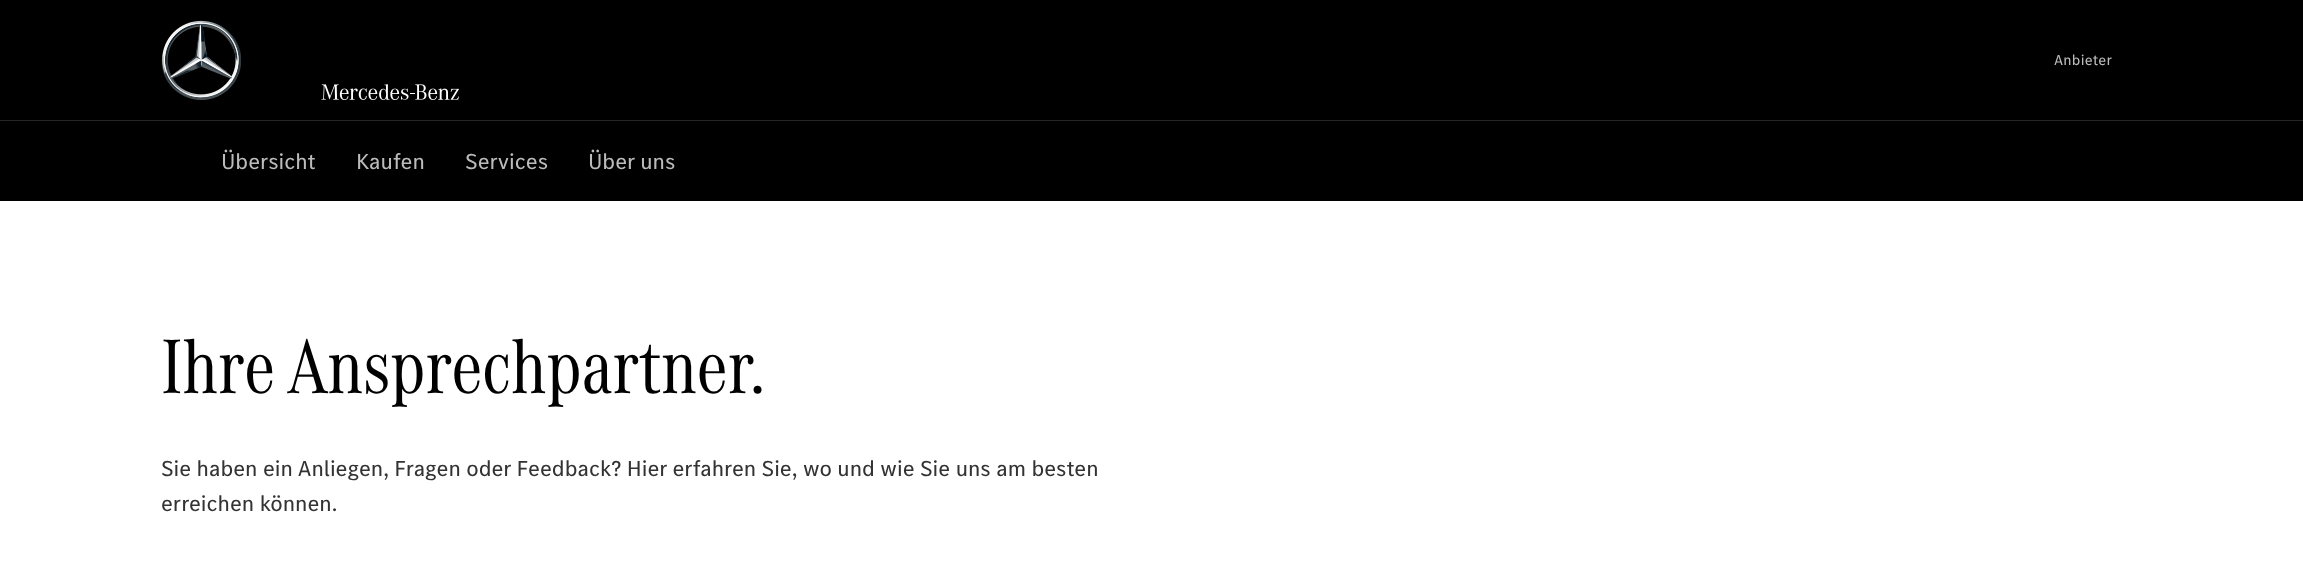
<svg xmlns="http://www.w3.org/2000/svg" width="2303" height="584" viewBox="0 0 2303 584">
  <rect width="100%" height="100%" fill="rgb(255,255,255)"/>
  <rect x="0" y="0" width="2303" height="201" fill="rgb(0,0,0)"/>
  <image x="161" y="20" width="80" height="80" href="pic1.png"/>
  <image x="321" y="84" width="138" height="16" href="pic2.png"/>
  <text x="2054" y="65" font-family="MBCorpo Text" font-size="15" letter-spacing="0.25" fill="rgb(187,187,187)">Anbieter</text>
  <rect x="0" y="120" width="2303" height="1" fill="rgb(38,38,38)"/>
  <g font-family="MBCorpo Text" font-size="22.5" fill="rgb(187,187,187)">
    <text x="221" y="169">Übersicht</text>
    <text x="356" y="169">Kaufen</text>
    <text x="465" y="169">Services</text>
    <text x="588" y="169">Über uns</text>
  </g>
  <text x="161" y="393" font-family="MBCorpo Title" font-size="80" fill="rgb(0,0,0)">Ihre Ansprechpartner.</text>
  <g font-family="MBCorpo Text" font-size="22.5" fill="rgb(51,51,51)">
    <text>
      <tspan x="161" y="476">Sie haben ein Anliegen, Fragen oder Feedback? Hier erfahren Sie, wo und wie Sie uns am besten</tspan>
      <tspan x="161" y="511">erreichen können.</tspan>
    </text>
  </g>
</svg>
